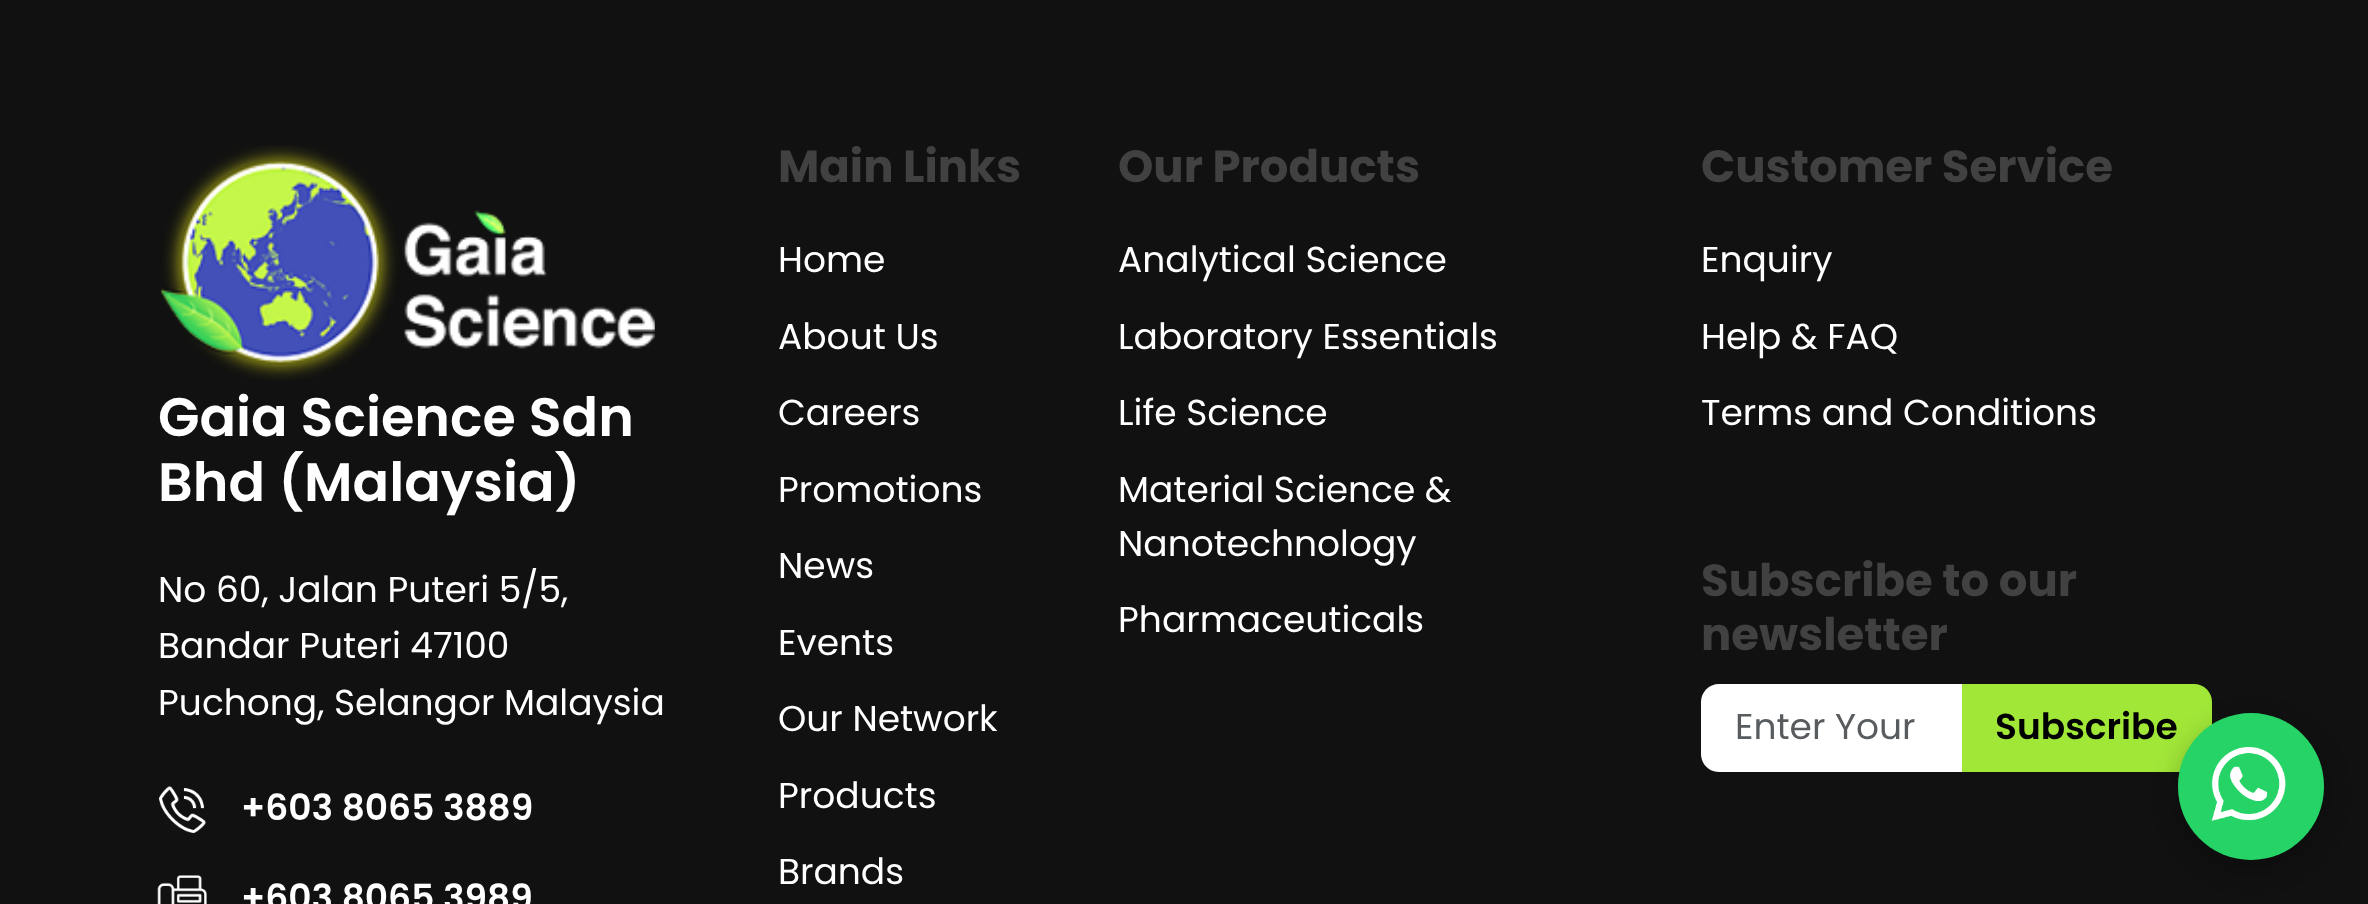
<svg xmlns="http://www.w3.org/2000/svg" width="2368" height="904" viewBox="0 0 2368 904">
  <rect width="100%" height="100%" fill="rgb(17,17,17)"/>
  <image x="159" y="145" width="496" height="235" href="pic1.png"/>
  <g font-family="Poppins" font-size="54" font-weight="600" fill="rgb(255,255,255)">
    <text>
      <tspan x="158" y="436">Gaia Science Sdn</tspan>
      <tspan x="158" y="501">Bhd (Malaysia)</tspan>
    </text>
  </g>
  <g font-family="Poppins" font-size="36" fill="rgb(255,255,255)">
    <text>
      <tspan x="158" y="602">No 60, Jalan Puteri 5/5,</tspan>
      <tspan x="158" y="658">Bandar Puteri 47100</tspan>
      <tspan x="158" y="715">Puchong, Selangor Malaysia</tspan>
    </text>
  </g>
  <image x="159" y="786" width="47" height="47" href="pic2.png"/>
  <text x="241" y="820" font-family="Poppins" font-size="36" font-weight="600" fill="rgb(255,255,255)">+603 8065 3889</text>
  <image x="157" y="875" width="50" height="29" href="pic3.png"/>
  <text x="241" y="910" font-family="Poppins" font-size="36" font-weight="600" fill="rgb(255,255,255)">+603 8065 3989</text>
  <text x="778" y="182" font-family="Poppins" font-size="45" font-weight="bold" fill="rgb(65,65,65)">Main Links</text>
  <g font-family="Poppins" font-size="36" fill="rgb(255,255,255)">
    <text x="778" y="272">Home</text>
    <text x="778" y="349">About Us</text>
    <text x="778" y="425">Careers</text>
    <text x="778" y="502">Promotions</text>
    <text x="778" y="578">News</text>
    <text x="778" y="655">Events</text>
    <text x="778" y="731">Our Network</text>
    <text x="778" y="808">Products</text>
    <text x="778" y="884">Brands</text>
  </g>
  <text x="1118" y="182" font-family="Poppins" font-size="45" font-weight="bold" fill="rgb(65,65,65)">Our Products</text>
  <g font-family="Poppins" font-size="36" fill="rgb(255,255,255)">
    <text x="1118" y="272">Analytical Science</text>
    <text x="1118" y="349">Laboratory Essentials</text>
    <text x="1118" y="425">Life Science</text>
    <text>
      <tspan x="1118" y="502">Material Science &amp;</tspan>
      <tspan x="1118" y="556">Nanotechnology</tspan>
    </text>
    <text x="1118" y="632">Pharmaceuticals</text>
  </g>
  <text x="1701" y="182" font-family="Poppins" font-size="45" font-weight="bold" fill="rgb(65,65,65)">Customer Service</text>
  <g font-family="Poppins" font-size="36" fill="rgb(255,255,255)">
    <text x="1701" y="272">Enquiry</text>
    <text x="1701" y="349">Help &amp; FAQ</text>
    <text x="1701" y="425">Terms and Conditions</text>
  </g>
  <g font-family="Poppins" font-size="45" font-weight="bold" fill="rgb(65,65,65)">
    <text>
      <tspan x="1701" y="596">Subscribe to our</tspan>
      <tspan x="1701" y="650">newsletter</tspan>
    </text>
  </g>
  <path d="M1719 684H1962V772H1719C1709 772 1701 764 1701 754V702C1701 692 1709 684 1719 684Z" fill="rgb(255,255,255)"/>
  <text x="1735" y="739" font-family="Poppins" font-size="36" fill="rgb(89,92,95)">Enter Your</text>
  <path d="M1962 684H2194C2204 684 2212 692 2212 702V754C2212 764 2204 772 2194 772H1962Z" fill="rgb(161,231,56)"/>
  <text x="1995" y="739" font-family="Poppins" font-size="36" font-weight="600" fill="rgb(0,0,0)">Subscribe</text>
  <rect x="2178" y="722" width="146" height="147" rx="73" fill="rgba(0,0,0,0.25)" filter="blur(13.5px)"/>
  <rect x="2178" y="713" width="146" height="147" rx="73" fill="rgb(37,211,102)"/>
  <image x="2211" y="747" width="75" height="74" href="pic4.png"/>
</svg>
